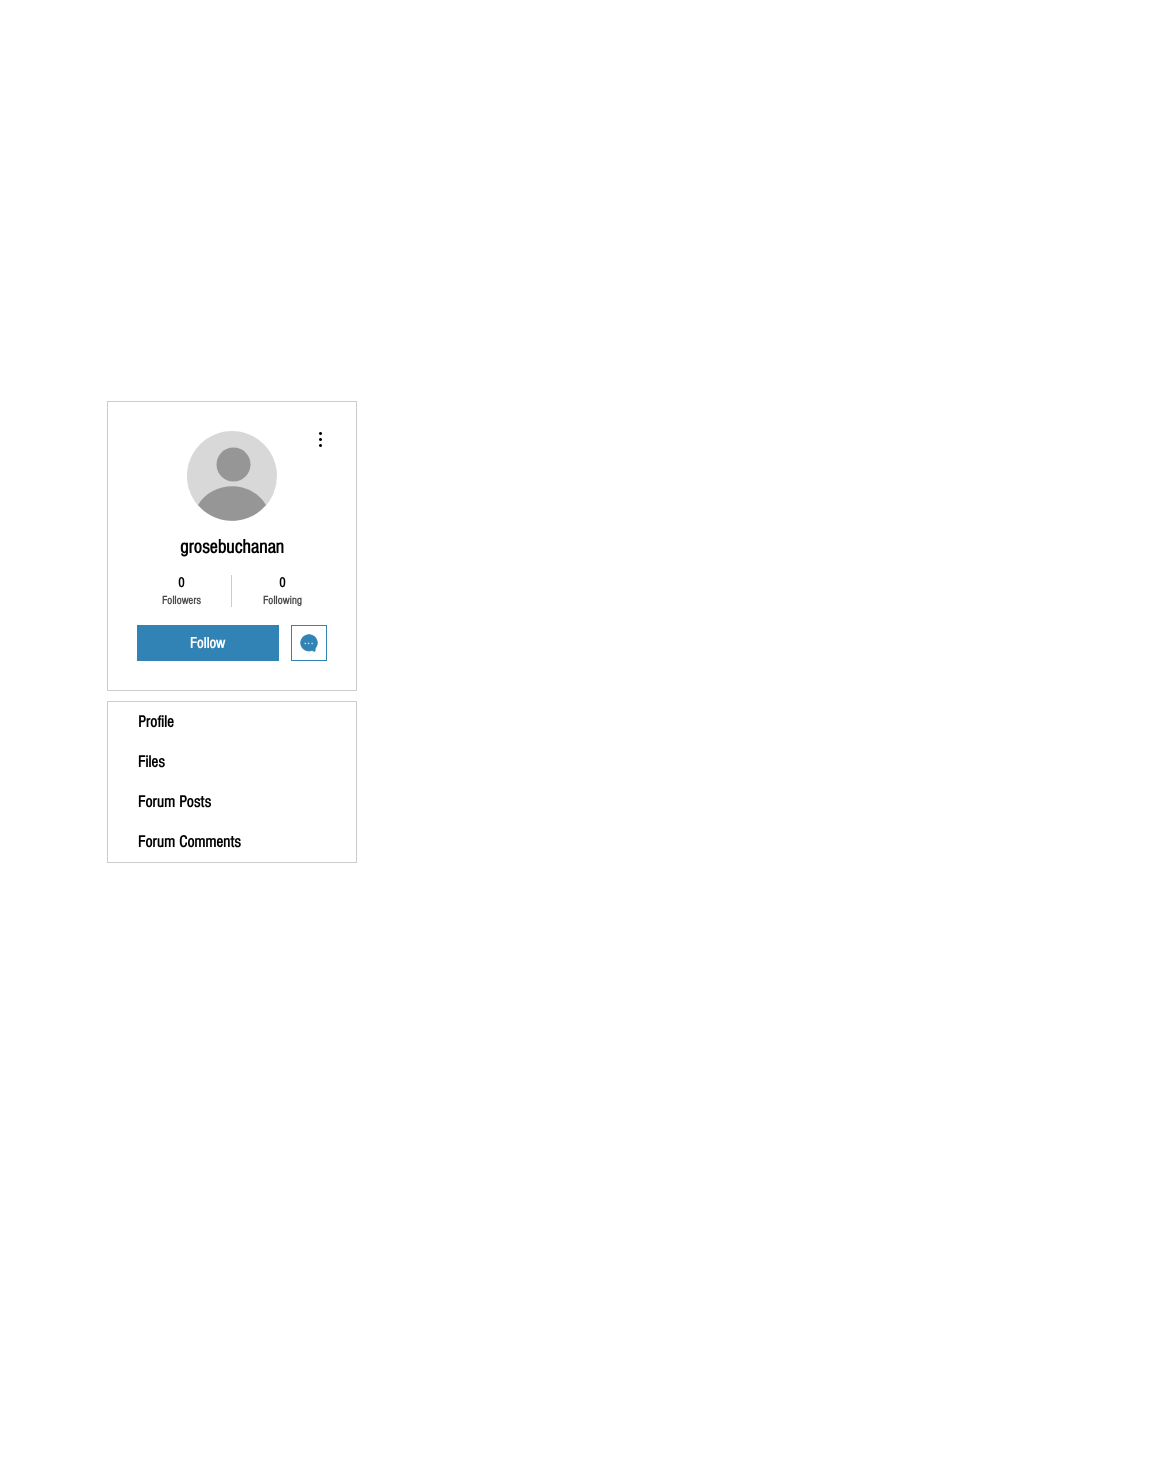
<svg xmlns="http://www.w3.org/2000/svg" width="1153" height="1458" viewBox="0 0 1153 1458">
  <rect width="100%" height="100%" fill="rgb(255,255,255)"/>
  <rect x="107.5" y="401.5" width="249" height="289" fill="none" stroke="rgb(204,204,204)"/>
  <circle cx="232" cy="476" r="45" fill="rgb(216,216,216)"/>
  <circle cx="233.5" cy="464.5" r="17" fill="rgb(150,150,150)"/>
  <path d="M266 505C248 526 216 526 198 505C213 480 251 480 266 505Z" fill="rgb(150,150,150)"/>
  <image x="319" y="432" width="3" height="15" href="pic1.png"/>
  <text x="180" y="553" font-family="'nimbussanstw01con'" font-size="20" font-weight="bold" fill="rgb(0,0,0)">grosebuchanan</text>
  <text x="178" y="587" font-family="'nimbussanstw01con'" font-size="14" font-weight="bold" fill="rgb(0,0,0)">0</text>
  <text x="162" y="604" font-family="'nimbussanstw01con'" font-size="12" font-weight="bold" fill="rgb(77,77,77)">Followers</text>
  <rect x="231" y="575" width="1" height="32" fill="rgb(204,204,204)"/>
  <text x="279" y="587" font-family="'nimbussanstw01con'" font-size="14" font-weight="bold" fill="rgb(0,0,0)">0</text>
  <text x="263" y="604" font-family="'nimbussanstw01con'" font-size="12" font-weight="bold" fill="rgb(77,77,77)">Following</text>
  <rect x="137" y="625" width="142" height="36" fill="rgb(49,130,181)"/>
  <text x="190" y="648" font-family="'nimbussanstw01con'" font-size="16" font-weight="bold" fill="rgb(255,255,255)">Follow</text>
  <rect x="291.5" y="625.5" width="35" height="35" fill="none" stroke="rgb(49,130,181)"/>
  <image x="300" y="634" width="18" height="18" href="pic2.png"/>
  <rect x="107.5" y="701.5" width="249" height="161" fill="none" stroke="rgb(204,204,204)"/>
  <g font-family="'nimbussanstw01con'" font-size="17" font-weight="bold" fill="rgb(0,0,0)">
    <text x="138" y="727">Profile</text>
    <text x="138" y="767">Files</text>
    <text x="138" y="807">Forum Posts</text>
    <text x="138" y="847">Forum Comments</text>
  </g>
</svg>
